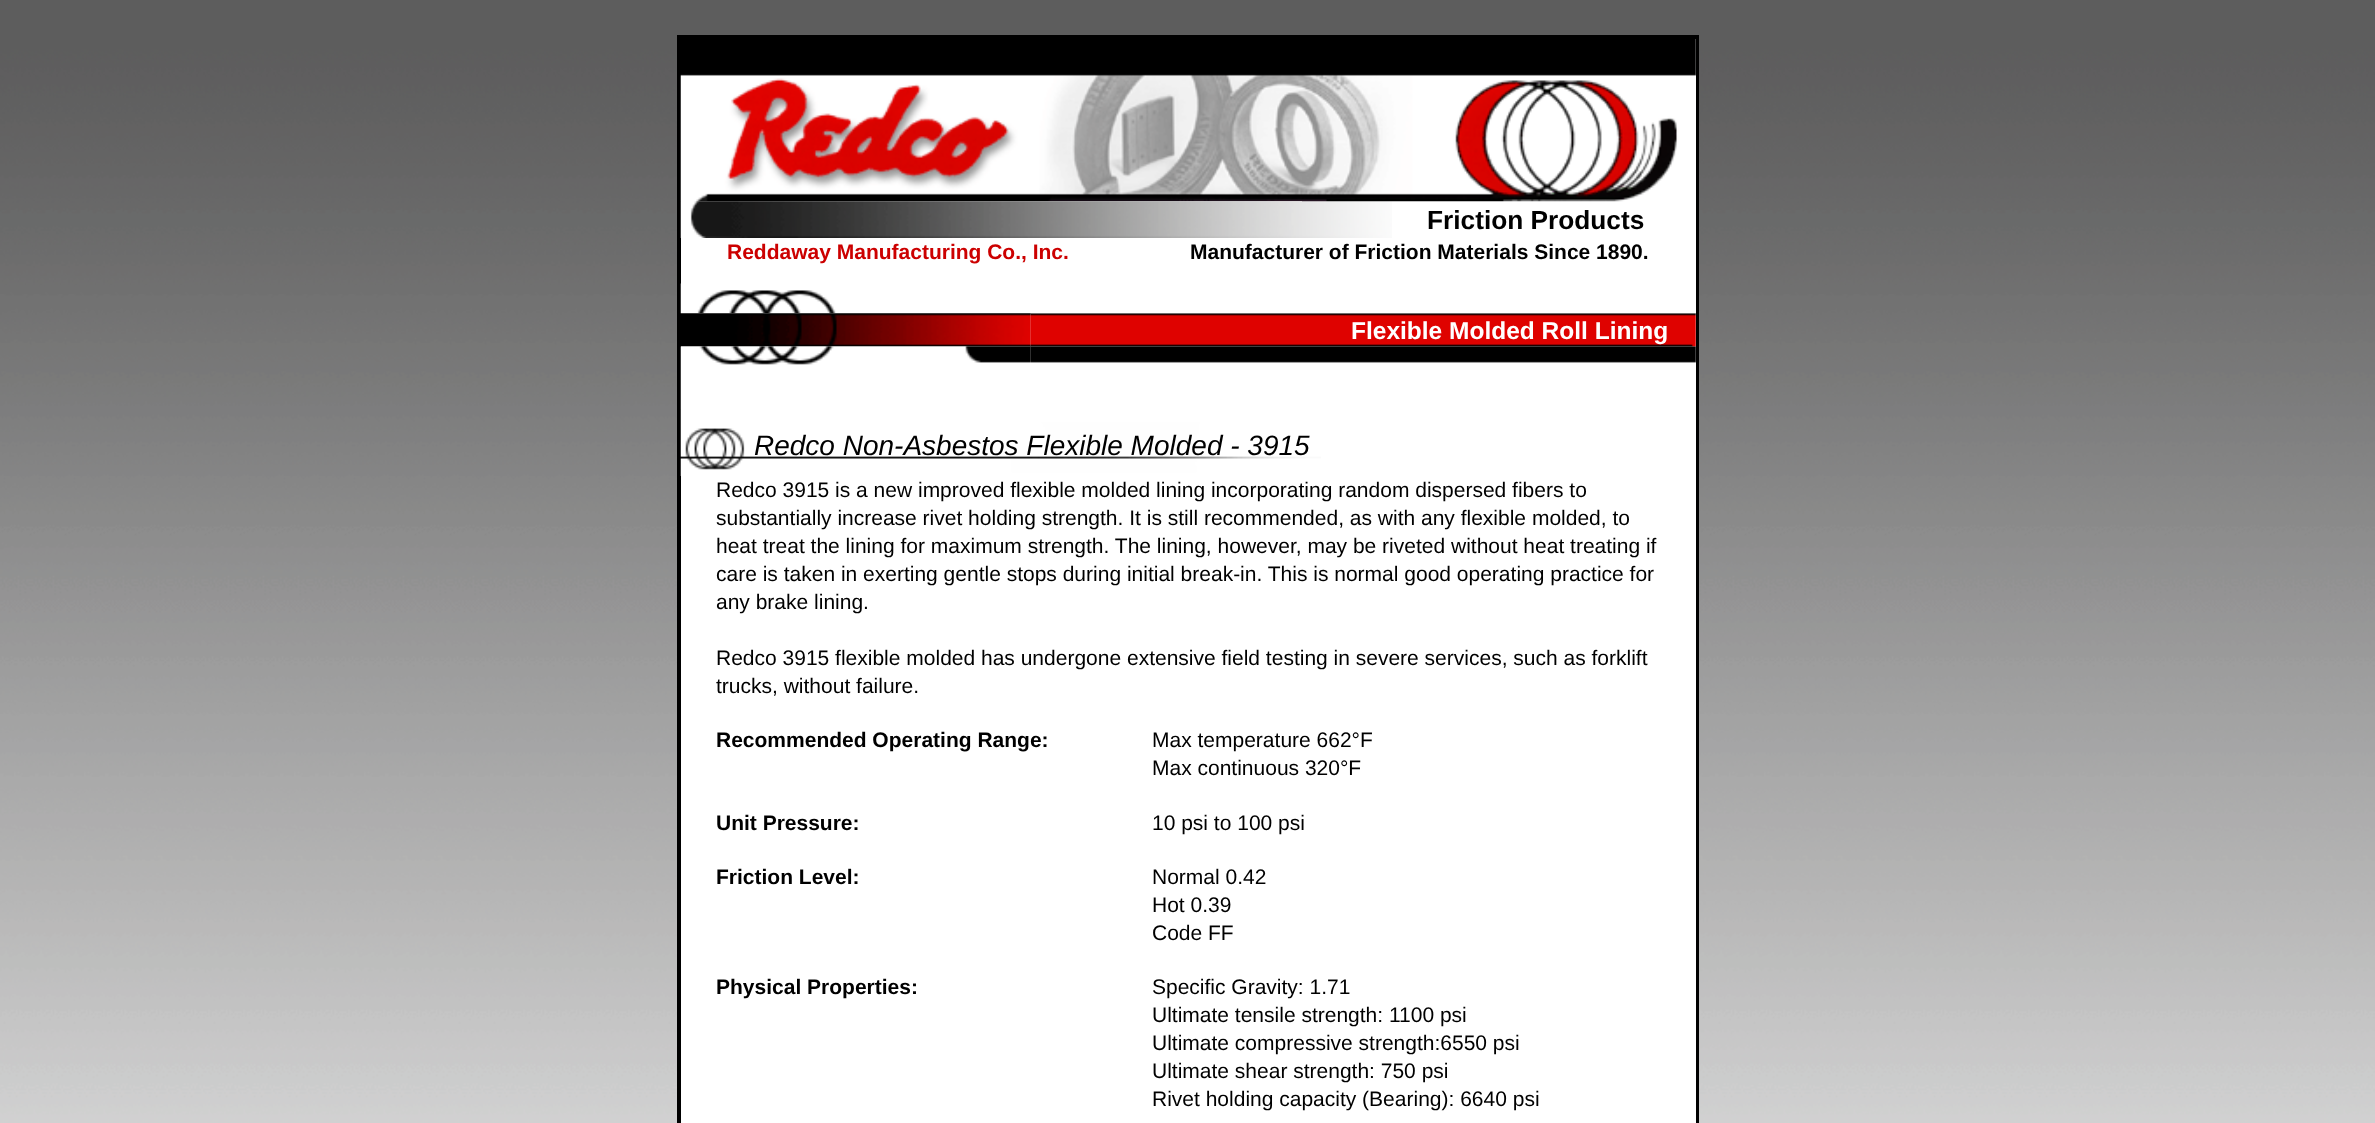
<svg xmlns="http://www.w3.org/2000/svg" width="2375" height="1123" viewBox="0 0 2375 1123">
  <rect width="100%" height="100%" fill="rgb(255,255,255)"/>
  <image x="0" y="0" width="2375" height="1123" href="pic1.png"/>
  <rect x="678" y="36" width="1020" height="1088" fill="none" stroke="rgb(0,0,0)" stroke-width="2"/>
  <rect x="680" y="38" width="1017" height="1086" fill="none" stroke="rgb(0,0,0)" stroke-width="2"/>
  <rect x="681" y="39" width="1015" height="1084" fill="rgb(255,255,255)"/>
  <image x="1302" y="201" width="90" height="37" href="pic4.png"/>
  <image x="680" y="39" width="1016" height="163" href="pic2.png"/>
  <image x="680" y="201" width="622" height="37" href="pic3.png"/>
  <text x="1427" y="229" font-family="Liberation Sans" font-size="26.25" font-weight="bold" fill="rgb(0,0,0)">Friction Products</text>
  <text x="727" y="259" font-family="Liberation Sans" font-size="21" font-weight="bold" fill="rgb(204,0,0)">Reddaway Manufacturing Co., Inc.</text>
  <text x="1190" y="259" font-family="Liberation Sans" font-size="21" font-weight="bold" fill="rgb(0,0,0)">Manufacturer of Friction Materials Since 1890.</text>
  <image x="1030" y="313" width="666" height="34" href="pic7.png"/>
  <image x="680" y="283" width="1016" height="31" href="pic5.png"/>
  <image x="681" y="313" width="350" height="34" href="pic6.png"/>
  <text x="1351" y="339" font-family="Liberation Sans" font-size="24.5" font-weight="bold" fill="rgb(255,255,255)">Flexible Molded Roll Lining</text>
  <image x="680" y="409" width="641" height="67" href="pic10.png"/>
  <image x="680" y="346" width="351" height="64" href="pic8.png"/>
  <image x="1030" y="346" width="666" height="17" href="pic9.png"/>
  <text x="754" y="455" font-family="Liberation Sans" font-size="28" font-style="italic" fill="rgb(0,0,0)">Redco Non-Asbestos Flexible Molded - 3915</text>
  <g font-family="Liberation Sans" font-size="21" fill="rgb(0,0,0)">
    <text>
      <tspan x="716" y="497">Redco 3915 is a new improved flexible molded lining incorporating random dispersed fibers to</tspan>
      <tspan x="716" y="525">substantially increase rivet holding strength. It is still recommended, as with any flexible molded, to</tspan>
      <tspan x="716" y="553">heat treat the lining for maximum strength. The lining, however, may be riveted without heat treating if</tspan>
      <tspan x="716" y="581">care is taken in exerting gentle stops during initial break-in. This is normal good operating practice for</tspan>
      <tspan x="716" y="609">any brake lining.</tspan>
    </text>
    <text>
      <tspan x="716" y="665">Redco 3915 flexible molded has undergone extensive field testing in severe services, such as forklift</tspan>
      <tspan x="716" y="693">trucks, without failure.</tspan>
    </text>
  </g>
  <text x="716" y="747" font-family="Liberation Sans" font-size="21" font-weight="bold" fill="rgb(0,0,0)">Recommended Operating Range:</text>
  <g font-family="Liberation Sans" font-size="21" fill="rgb(0,0,0)">
    <text>
      <tspan x="1152" y="747">Max temperature 662°F</tspan>
      <tspan x="1152" y="775">Max continuous 320°F</tspan>
    </text>
  </g>
  <text x="716" y="830" font-family="Liberation Sans" font-size="21" font-weight="bold" fill="rgb(0,0,0)">Unit Pressure:</text>
  <text x="1152" y="830" font-family="Liberation Sans" font-size="21" fill="rgb(0,0,0)">10 psi to 100 psi</text>
  <text x="716" y="884" font-family="Liberation Sans" font-size="21" font-weight="bold" fill="rgb(0,0,0)">Friction Level:</text>
  <g font-family="Liberation Sans" font-size="21" fill="rgb(0,0,0)">
    <text>
      <tspan x="1152" y="884">Normal 0.42</tspan>
      <tspan x="1152" y="912">Hot 0.39</tspan>
      <tspan x="1152" y="940">Code FF</tspan>
    </text>
  </g>
  <text x="716" y="994" font-family="Liberation Sans" font-size="21" font-weight="bold" fill="rgb(0,0,0)">Physical Properties:</text>
  <g font-family="Liberation Sans" font-size="21" fill="rgb(0,0,0)">
    <text>
      <tspan x="1152" y="994">Specific Gravity: 1.71</tspan>
      <tspan x="1152" y="1022">Ultimate tensile strength: 1100 psi</tspan>
      <tspan x="1152" y="1050">Ultimate compressive strength:6550 psi</tspan>
      <tspan x="1152" y="1078">Ultimate shear strength: 750 psi</tspan>
      <tspan x="1152" y="1106">Rivet holding capacity (Bearing): 6640 psi</tspan>
    </text>
  </g>
</svg>
